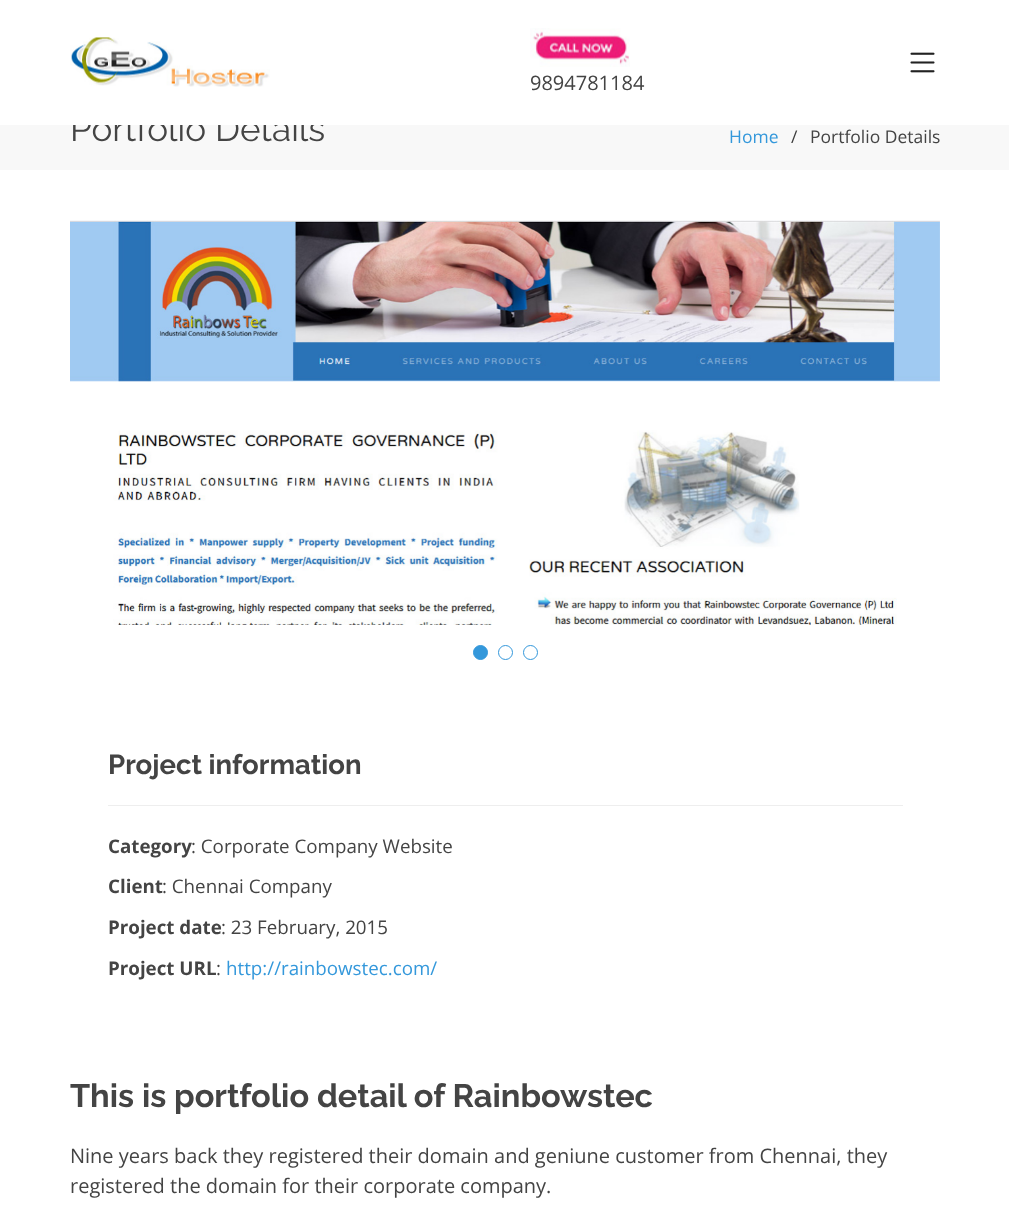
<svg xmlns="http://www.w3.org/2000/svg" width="1009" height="1225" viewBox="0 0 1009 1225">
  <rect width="100%" height="100%" fill="rgb(255,255,255)"/>
  <rect x="0" y="125" width="1009" height="45" fill="rgb(248,248,248)"/>
  <text x="70" y="141" font-family="Raleway" font-size="35" fill="rgb(68,68,68)">Portfolio Details</text>
  <rect x="73" y="115" width="251" height="10" fill="rgb(255,255,255)"/>
  <image x="70" y="37" width="200" height="50" href="pic1.png"/>
  <image x="910" y="52" width="25" height="21" href="pic2.png"/>
  <image x="530" y="28" width="100" height="39" href="pic3.png"/>
  <text x="530" y="90" font-family="Open Sans" font-size="20" fill="rgb(68,68,68)">9894781184</text>
  <text x="729" y="143" font-family="Open Sans" font-size="17.5" fill="rgb(52,152,219)">Home</text>
  <text x="791" y="143" font-family="Open Sans" font-size="17.5" fill="rgb(60,60,60)">/</text>
  <text x="810" y="143" font-family="Open Sans" font-size="17.5" fill="rgb(68,68,68)">Portfolio Details</text>
  <image x="70" y="220" width="870" height="405" href="pic4.png"/>
  <circle cx="480.5" cy="652.5" r="7" fill="rgb(52,152,219)" stroke="rgb(52,152,219)"/>
  <circle cx="505.5" cy="652.5" r="7" fill="none" stroke="rgb(52,152,219)"/>
  <circle cx="530.5" cy="652.5" r="7" fill="none" stroke="rgb(52,152,219)"/>
  <rect x="108" y="805" width="795" height="1" fill="rgb(238,238,238)"/>
  <text x="108" y="774" font-family="Raleway" font-size="27.5" font-weight="bold" fill="rgb(68,68,68)">Project information</text>
  <text x="108" y="853" font-family="Open Sans" font-size="18.75" font-weight="bold" fill="rgb(68,68,68)">Category</text>
  <text x="191" y="853" font-family="Open Sans" font-size="18.75" fill="rgb(68,68,68)">: Corporate Company Website</text>
  <text x="108" y="893" font-family="Open Sans" font-size="18.75" font-weight="bold" fill="rgb(68,68,68)">Client</text>
  <text x="162" y="893" font-family="Open Sans" font-size="18.75" fill="rgb(68,68,68)">: Chennai Company</text>
  <text x="108" y="934" font-family="Open Sans" font-size="18.75" font-weight="bold" fill="rgb(68,68,68)">Project date</text>
  <text x="221" y="934" font-family="Open Sans" font-size="18.75" fill="rgb(68,68,68)">: 23 February, 2015</text>
  <text x="108" y="975" font-family="Open Sans" font-size="18.75" font-weight="bold" fill="rgb(68,68,68)">Project URL</text>
  <text x="216" y="975" font-family="Open Sans" font-size="18.75" fill="rgb(68,68,68)">:</text>
  <text x="226" y="975" font-family="Open Sans" font-size="18.75" fill="rgb(52,152,219)">http://rainbowstec.com/</text>
  <text x="70" y="1107" font-family="Raleway" font-size="32.5" font-weight="bold" fill="rgb(68,68,68)">This is portfolio detail of Rainbowstec</text>
  <g font-family="Open Sans" font-size="20" fill="rgb(68,68,68)">
    <text>
      <tspan x="70" y="1163">Nine years back they registered their domain and geniune customer from Chennai, they</tspan>
      <tspan x="70" y="1193">registered the domain for their corporate company.</tspan>
    </text>
  </g>
</svg>
